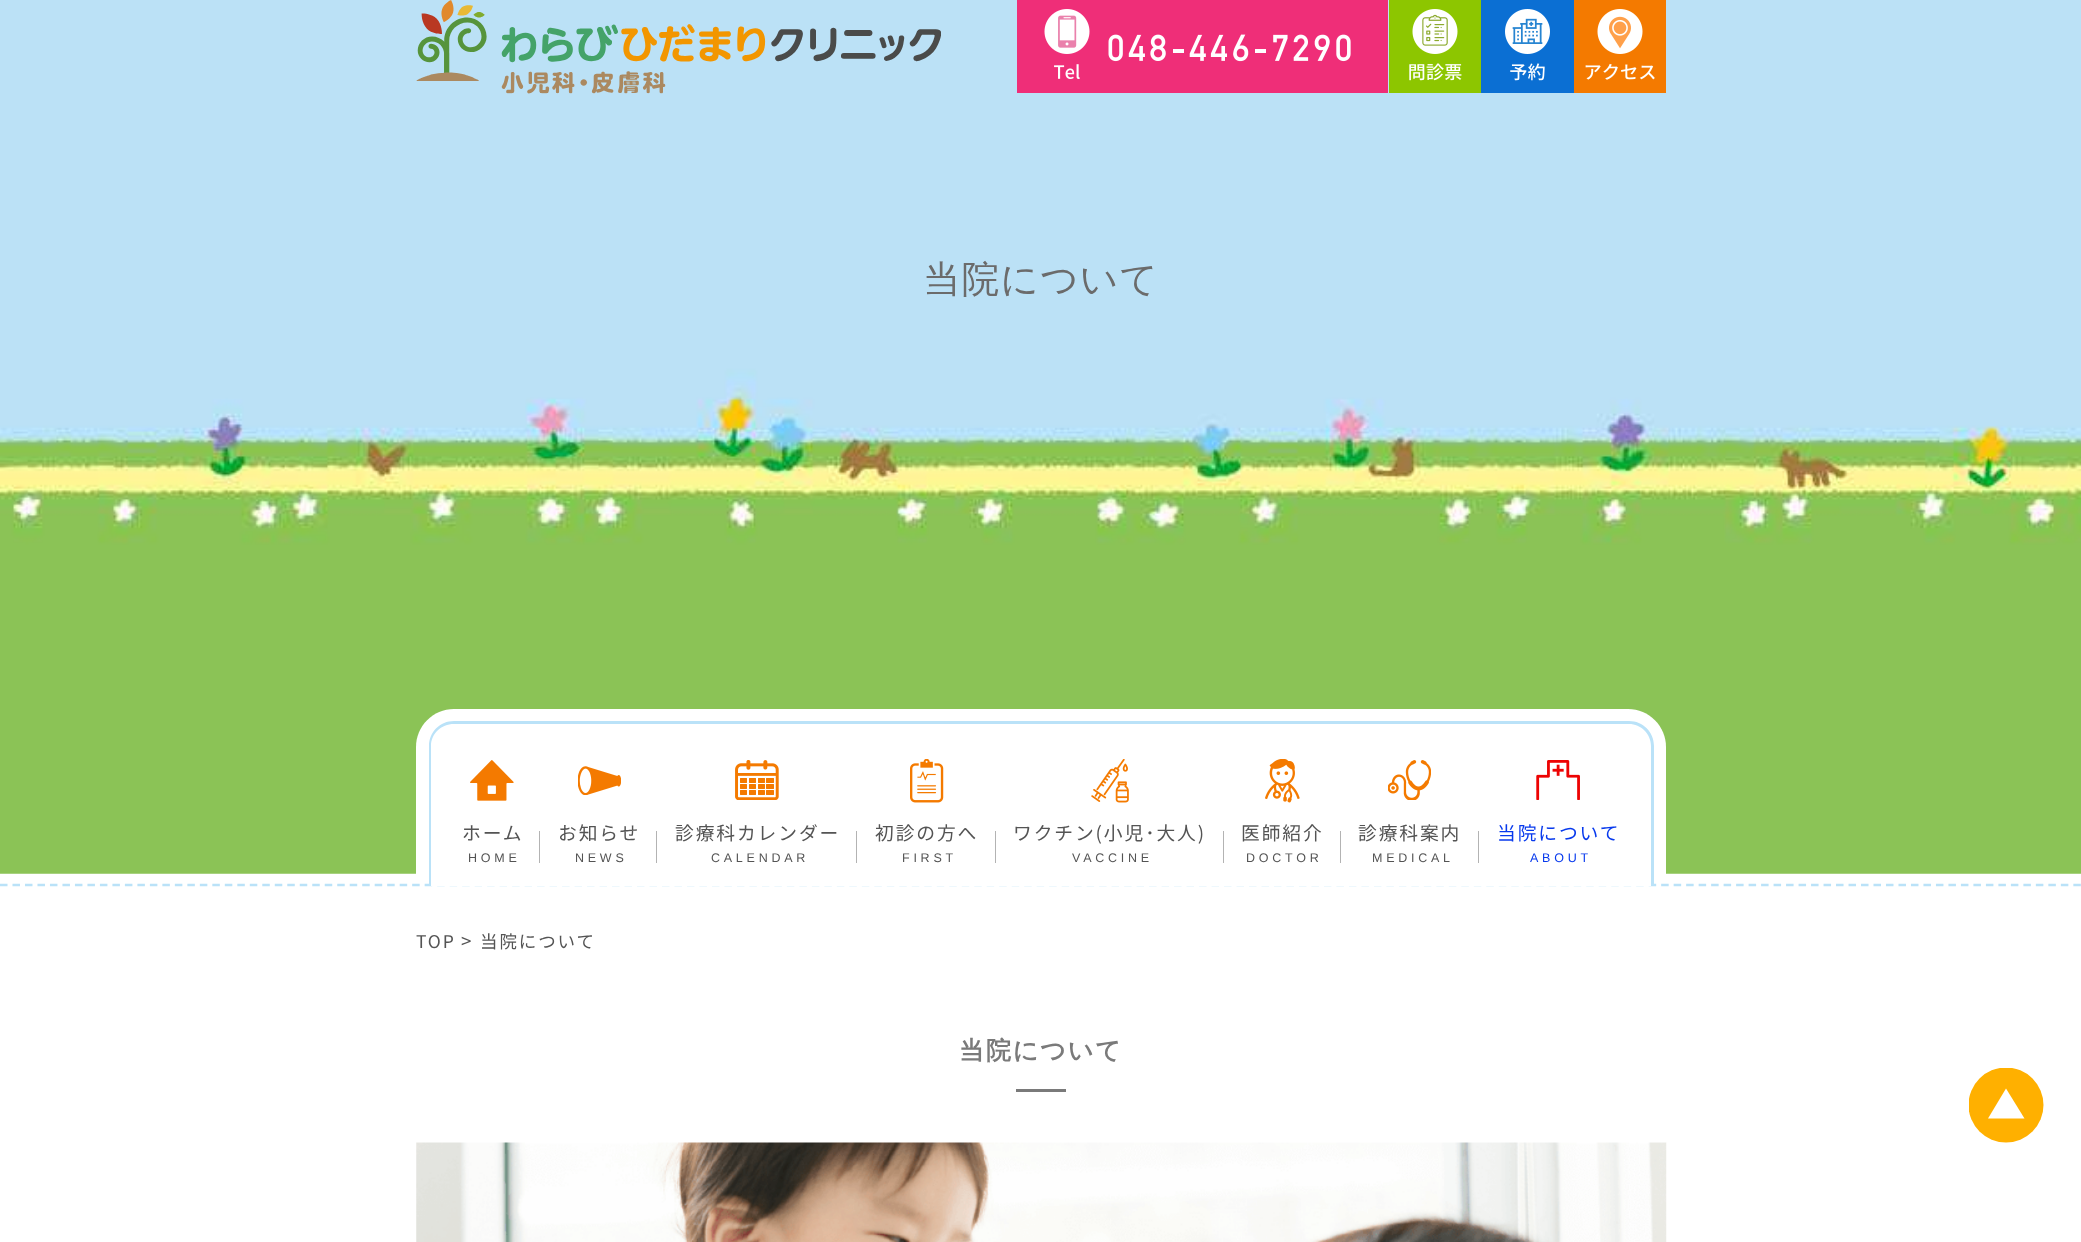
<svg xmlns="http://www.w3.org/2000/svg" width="2081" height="1242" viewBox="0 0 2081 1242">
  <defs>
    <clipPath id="clip1"><rect x="1969" y="1068" width="75" height="75"/></clipPath>
  </defs>
  <rect width="100%" height="100%" fill="rgb(255,255,255)"/>
  <image x="0" y="0" width="2081" height="874" href="pic1.png"/>
  <text x="923" y="292" font-family="WenQuanYi Zen Hei" font-size="37.5" font-weight="500" letter-spacing="1.25" fill="rgb(107,107,107)">当院について</text>
  <image x="416" y="0" width="525" height="94" href="pic2.png"/>
  <image x="1017" y="0" width="371" height="93" href="pic3.png"/>
  <image x="1389" y="0" width="92" height="93" href="pic4.png"/>
  <image x="1481" y="0" width="93" height="93" href="pic5.png"/>
  <image x="1574" y="0" width="92" height="93" href="pic6.png"/>
  <path d="M454 709H1628C1649 709 1666 726 1666 747V886H416V747C416 726 433 709 454 709Z" fill="rgb(255,255,255)"/>
  <path d="M0 885H2081" fill="none" stroke="rgb(186,226,248)" stroke-width="2.5" stroke-dasharray="7.5 4.99"/>
  <path d="M454 721H1629C1643 721 1654 732 1654 746V886H429V746C429 732 440 721 454 721Z" fill="rgb(255,255,255)"/>
  <path d="M454 721H1629C1643 721 1654 732 1654 746V886H429V746C429 732 440 721 454 721ZM454 724H1629C1641 724 1651 734 1651 746V886H431V746C431 734 441 724 454 724Z" fill="rgb(186,226,248)" fill-rule="evenodd"/>
  <image x="470" y="760" width="44" height="41" href="pic7.png"/>
  <text x="462" y="840" font-family="Noto Sans JP" font-size="18.75" letter-spacing="1.9" fill="rgb(84,84,84)">ホーム</text>
  <text x="468" y="862" font-family="Liberation Sans" font-size="12.5" letter-spacing="3.75" fill="rgb(84,84,84)">HOME</text>
  <rect x="539" y="831" width="1" height="32" fill="rgb(179,179,179)"/>
  <image x="578" y="766" width="43" height="29" href="pic8.png"/>
  <text x="558" y="840" font-family="Noto Sans JP" font-size="18.75" letter-spacing="1.9" fill="rgb(84,84,84)">お知らせ</text>
  <text x="575" y="862" font-family="Liberation Sans" font-size="12.5" letter-spacing="3.75" fill="rgb(84,84,84)">NEWS</text>
  <rect x="656" y="831" width="1" height="32" fill="rgb(179,179,179)"/>
  <image x="735" y="760" width="44" height="40" href="pic9.png"/>
  <text x="675" y="840" font-family="Noto Sans JP" font-size="18.75" letter-spacing="1.9" fill="rgb(84,84,84)">診療科カレンダー</text>
  <text x="711" y="862" font-family="Liberation Sans" font-size="12.5" letter-spacing="3.75" fill="rgb(84,84,84)">CALENDAR</text>
  <rect x="856" y="831" width="1" height="32" fill="rgb(179,179,179)"/>
  <image x="910" y="759" width="34" height="44" href="pic10.png"/>
  <text x="875" y="840" font-family="Noto Sans JP" font-size="18.75" letter-spacing="1.9" fill="rgb(84,84,84)">初診の方へ</text>
  <text x="902" y="862" font-family="Liberation Sans" font-size="12.5" letter-spacing="3.75" fill="rgb(84,84,84)">FIRST</text>
  <rect x="995" y="831" width="1" height="32" fill="rgb(179,179,179)"/>
  <image x="1091" y="759" width="38" height="44" href="pic11.png"/>
  <text x="1013" y="840" font-family="Noto Sans JP" font-size="18.75" letter-spacing="1.9" fill="rgb(84,84,84)">ワクチン(小児･大人)</text>
  <text x="1072" y="862" font-family="Liberation Sans" font-size="12.5" letter-spacing="3.75" fill="rgb(84,84,84)">VACCINE</text>
  <rect x="1223" y="831" width="1" height="32" fill="rgb(179,179,179)"/>
  <image x="1265" y="759" width="35" height="44" href="pic12.png"/>
  <text x="1241" y="840" font-family="Noto Sans JP" font-size="18.75" letter-spacing="1.9" fill="rgb(84,84,84)">医師紹介</text>
  <text x="1246" y="862" font-family="Liberation Sans" font-size="12.5" letter-spacing="3.75" fill="rgb(84,84,84)">DOCTOR</text>
  <rect x="1340" y="831" width="1" height="32" fill="rgb(179,179,179)"/>
  <image x="1388" y="760" width="43" height="40" href="pic13.png"/>
  <text x="1358" y="840" font-family="Noto Sans JP" font-size="18.75" letter-spacing="1.9" fill="rgb(84,84,84)">診療科案内</text>
  <text x="1372" y="862" font-family="Liberation Sans" font-size="12.5" letter-spacing="3.75" fill="rgb(84,84,84)">MEDICAL</text>
  <rect x="1478" y="831" width="1" height="32" fill="rgb(179,179,179)"/>
  <image x="1536" y="760" width="44" height="40" href="pic14.png"/>
  <text x="1497" y="840" font-family="Noto Sans JP" font-size="18.75" letter-spacing="1.9" fill="rgb(7,57,237)">当院について</text>
  <text x="1530" y="862" font-family="Liberation Sans" font-size="12.5" letter-spacing="3.75" fill="rgb(7,57,237)">ABOUT</text>
  <text x="416" y="948" font-family="Noto Sans JP" font-size="17.5" letter-spacing="1.9" fill="rgb(84,84,84)">TOP</text>
  <text x="461" y="948" font-family="Noto Sans JP" font-size="18.75" letter-spacing="1.9" fill="rgb(84,84,84)">&gt;</text>
  <text x="480" y="948" font-family="Noto Sans JP" font-size="17.5" letter-spacing="1.9" fill="rgb(84,84,84)">当院について</text>
  <text x="959" y="1059" font-family="WenQuanYi Zen Hei" font-size="25" font-weight="bold" letter-spacing="1.9" fill="rgb(122,122,122)">当院について</text>
  <rect x="1016" y="1089" width="50" height="3" fill="rgb(122,122,122)"/>
  <image x="416" y="1142" width="1251" height="100" href="pic15.png"/>
  <g clip-path="url(#clip1)">
    <circle cx="2006" cy="1105" r="37.5" fill="rgb(255,176,0)"/>
  </g>
  <path d="M1988 1118.5L2006 1088.5L2024.5 1118.5Z" fill="rgb(255,255,255)"/>
</svg>
